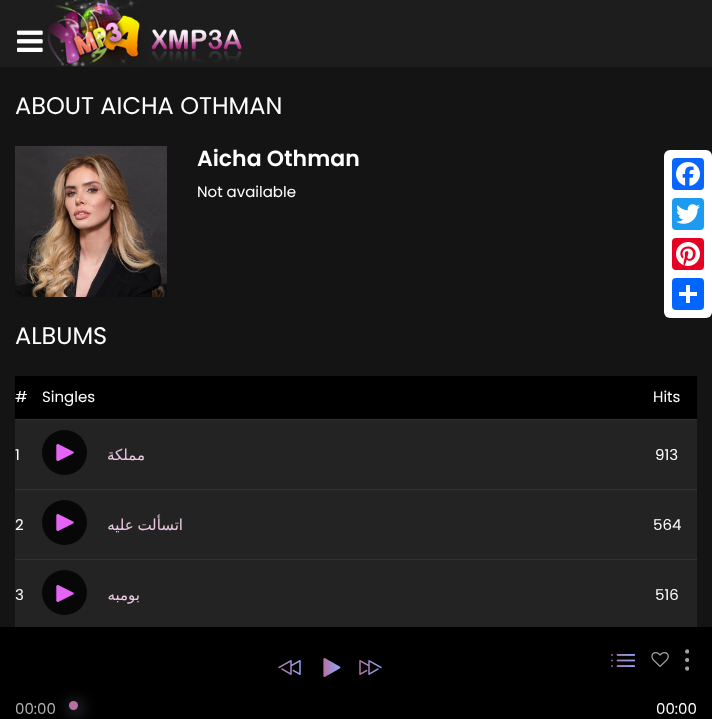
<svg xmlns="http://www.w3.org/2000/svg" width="712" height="719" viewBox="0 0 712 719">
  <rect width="100%" height="100%" fill="rgb(29,29,29)"/>
  <image x="17" y="30" width="26" height="22" href="pic1.png"/>
  <image x="47" y="0" width="195" height="67" href="pic2.png"/>
  <rect x="0" y="67" width="712" height="560" fill="rgb(20,20,20)"/>
  <text x="15" y="114" font-family="Poppins" font-size="24" fill="rgb(255,255,255)">ABOUT AICHA OTHMAN</text>
  <image x="15" y="146" width="152" height="151" href="pic3.png"/>
  <text x="197" y="166" font-family="Poppins" font-size="22" font-weight="600" fill="rgb(255,255,255)">Aicha Othman</text>
  <text x="197" y="197" font-family="Poppins" font-size="15" fill="rgb(255,255,255)">Not available</text>
  <text x="15" y="344" font-family="Poppins" font-size="24" fill="rgb(255,255,255)">ALBUMS</text>
  <rect x="15" y="376" width="682" height="43" fill="rgb(0,0,0)"/>
  <rect x="15" y="419" width="682" height="1" fill="rgb(51,51,51)"/>
  <g font-family="Poppins" font-size="15" fill="rgb(255,255,255)">
    <text x="15" y="402">#</text>
    <text x="42" y="402">Singles</text>
    <text x="653" y="402">Hits</text>
  </g>
  <rect x="15" y="420" width="682" height="69" fill="rgb(35,35,35)"/>
  <rect x="15" y="489" width="682" height="1" fill="rgb(51,51,51)"/>
  <text x="15" y="460" font-family="Poppins" font-size="15" fill="rgb(255,255,255)">1</text>
  <circle cx="64.5" cy="452.5" r="22.5" fill="rgb(7,7,7)"/>
  <image x="56" y="444" width="18" height="17" href="pic4.png"/>
  <text x="145" y="460" font-family="DejaVu Sans" font-size="15" direction="rtl" fill="rgb(236,200,226)">مملكة</text>
  <text x="655" y="460" font-family="Poppins" font-size="15" fill="rgb(255,255,255)">913</text>
  <rect x="15" y="490" width="682" height="69" fill="rgb(35,35,35)"/>
  <rect x="15" y="559" width="682" height="1" fill="rgb(51,51,51)"/>
  <text x="15" y="530" font-family="Poppins" font-size="15" fill="rgb(255,255,255)">2</text>
  <circle cx="64.5" cy="522.5" r="22.5" fill="rgb(7,7,7)"/>
  <image x="56" y="514" width="18" height="17" href="pic4.png"/>
  <text x="183" y="530" word-spacing="-1" font-family="DejaVu Sans" font-size="15" direction="rtl" fill="rgb(236,200,226)">اتسألت عليه</text>
  <text x="653" y="530" font-family="Poppins" font-size="15" fill="rgb(255,255,255)">564</text>
  <rect x="15" y="560" width="682" height="67" fill="rgb(35,35,35)"/>
  <text x="15" y="600" font-family="Poppins" font-size="15" fill="rgb(255,255,255)">3</text>
  <circle cx="64.5" cy="592.5" r="22.5" fill="rgb(7,7,7)"/>
  <image x="56" y="585" width="18" height="17" href="pic4.png"/>
  <text x="140" y="600" font-family="DejaVu Sans" font-size="15" direction="rtl" fill="rgb(236,200,226)">بومبه</text>
  <text x="655" y="600" font-family="Poppins" font-size="15" fill="rgb(255,255,255)">516</text>
  <rect x="664" y="150" width="48" height="168" rx="6" fill="rgb(255,255,255)"/>
  <rect x="672" y="158" width="32" height="32" rx="4" fill="rgb(8,102,255)"/>
  <image x="676" y="162" width="24" height="24" href="pic5.png"/>
  <rect x="672" y="198" width="32" height="32" rx="4" fill="rgb(29,155,240)"/>
  <image x="676" y="204" width="24" height="20" href="pic6.png"/>
  <rect x="672" y="238" width="32" height="32" rx="4" fill="rgb(230,0,35)"/>
  <image x="676" y="242" width="24" height="24" href="pic7.png"/>
  <rect x="672" y="278" width="32" height="32" rx="4" fill="rgb(1,102,255)"/>
  <rect x="686" y="285" width="4" height="18" fill="rgb(255,255,255)"/>
  <rect x="679" y="292" width="18" height="4" fill="rgb(255,255,255)"/>
  <rect x="0" y="627" width="712" height="92" fill="rgb(0,0,0)"/>
  <image x="278" y="660" width="23" height="15" href="pic8.png"/>
  <image x="323" y="658" width="18" height="19" href="pic9.png"/>
  <image x="359" y="660" width="23" height="15" href="pic10.png"/>
  <image x="611" y="654" width="24" height="13" href="pic11.png"/>
  <image x="651" y="652" width="18" height="15" href="pic12.png"/>
  <image x="685" y="649" width="4" height="22" href="pic13.png"/>
  <text x="15" y="714" font-family="Poppins" font-size="15" fill="rgb(179,179,179)">00:00</text>
  <rect x="71" y="703" width="9" height="9" rx="4.5" fill="rgba(168,179,211,0.8)" filter="blur(8px)"/>
  <circle cx="73.5" cy="705.5" r="4.5" fill="rgb(181,113,161)"/>
  <text x="656" y="714" font-family="Poppins" font-size="15" fill="rgb(255,255,255)">00:00</text>
</svg>
